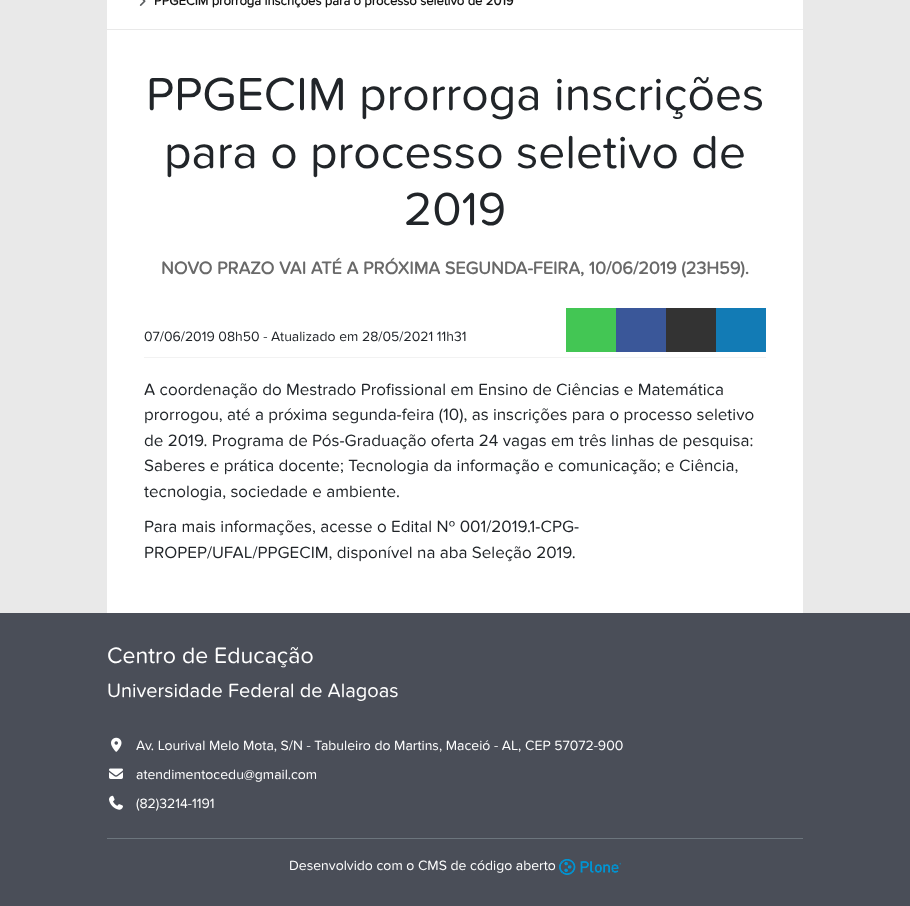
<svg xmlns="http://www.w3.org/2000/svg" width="910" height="906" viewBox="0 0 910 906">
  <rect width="100%" height="100%" fill="rgb(233,233,233)"/>
  <rect x="107" y="0" width="696" height="613" fill="rgb(255,255,255)"/>
  <rect x="107" y="29" width="696" height="1" fill="rgb(233,233,233)"/>
  <image x="139" y="0" width="7" height="6" href="pic1.png"/>
  <text x="154" y="5" font-family="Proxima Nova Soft" font-size="13" font-weight="bold" fill="rgb(21,21,21)">PPGECIM prorroga inscrições para o processo seletivo de 2019</text>
  <g font-family="Proxima Nova Soft" font-size="48" fill="rgb(33,37,41)">
    <text x="146" y="110">PPGECIM prorroga inscrições</text>
    <text x="164" y="168">para o processo seletivo de</text>
    <text x="404" y="225">2019</text>
  </g>
  <text x="161" y="274" font-family="Proxima Nova Soft" font-size="18" font-weight="bold" fill="rgb(105,105,105)">NOVO PRAZO VAI ATÉ A PRÓXIMA SEGUNDA-FEIRA, 10/06/2019 (23H59).</text>
  <rect x="144" y="357" width="622" height="1" fill="rgb(242,242,242)"/>
  <text x="144" y="341" font-family="Proxima Nova Soft" font-size="14" fill="rgb(33,37,41)">07/06/2019 08h50 - Atualizado em 28/05/2021 11h31</text>
  <rect x="566" y="308" width="50" height="44" fill="rgb(67,198,84)"/>
  <rect x="616" y="308" width="50" height="44" fill="rgb(58,87,153)"/>
  <rect x="666" y="308" width="50" height="44" fill="rgb(51,51,51)"/>
  <rect x="716" y="308" width="50" height="44" fill="rgb(18,123,181)"/>
  <g font-family="Proxima Nova Soft" font-size="17" fill="rgb(33,37,41)">
    <text>
      <tspan x="144" y="395">A coordenação do Mestrado Profissional em Ensino de Ciências e Matemática</tspan>
      <tspan x="144" y="420">prorrogou, até a próxima segunda-feira (10), as inscrições para o processo seletivo</tspan>
      <tspan x="144" y="446">de 2019. Programa de Pós-Graduação oferta 24 vagas em três linhas de pesquisa:</tspan>
      <tspan x="144" y="471">Saberes e prática docente; Tecnologia da informação e comunicação; e Ciência,</tspan>
      <tspan x="144" y="497">tecnologia, sociedade e ambiente.</tspan>
    </text>
    <text>
      <tspan x="144" y="532">Para mais informações, acesse o Edital Nº 001/2019.1-CPG-</tspan>
      <tspan x="144" y="558">PROPEP/UFAL/PPGECIM, disponível na aba Seleção 2019.</tspan>
    </text>
  </g>
  <rect x="0" y="613" width="910" height="293" fill="rgb(74,78,88)"/>
  <text x="107" y="663" font-family="Proxima Nova Soft" font-size="23.1" fill="rgb(255,255,255)">Centro de Educação</text>
  <text x="107" y="697" font-family="Proxima Nova Soft" font-size="20" fill="rgb(255,255,255)">Universidade Federal de Alagoas</text>
  <image x="111" y="737" width="11" height="15" href="pic2.png"/>
  <text x="136" y="750" font-family="Proxima Nova Soft" font-size="14" fill="rgb(255,255,255)">Av. Lourival Melo Mota, S/N - Tabuleiro do Martins, Maceió - AL, CEP 57072-900</text>
  <image x="109" y="768" width="14" height="11" href="pic3.png"/>
  <text x="136" y="779" font-family="Proxima Nova Soft" font-size="14" fill="rgb(255,255,255)">atendimentocedu@gmail.com</text>
  <image x="109" y="795" width="14" height="15" href="pic4.png"/>
  <text x="136" y="808" font-family="Proxima Nova Soft" font-size="14" fill="rgb(255,255,255)">(82)3214-1191</text>
  <rect x="107" y="838" width="696" height="1" fill="rgb(108,117,125)"/>
  <text x="289" y="870" font-family="Proxima Nova Soft" font-size="14" fill="rgb(255,255,255)">Desenvolvido com o CMS de código aberto</text>
  <image x="559" y="859" width="62" height="16" href="pic5.png"/>
</svg>
